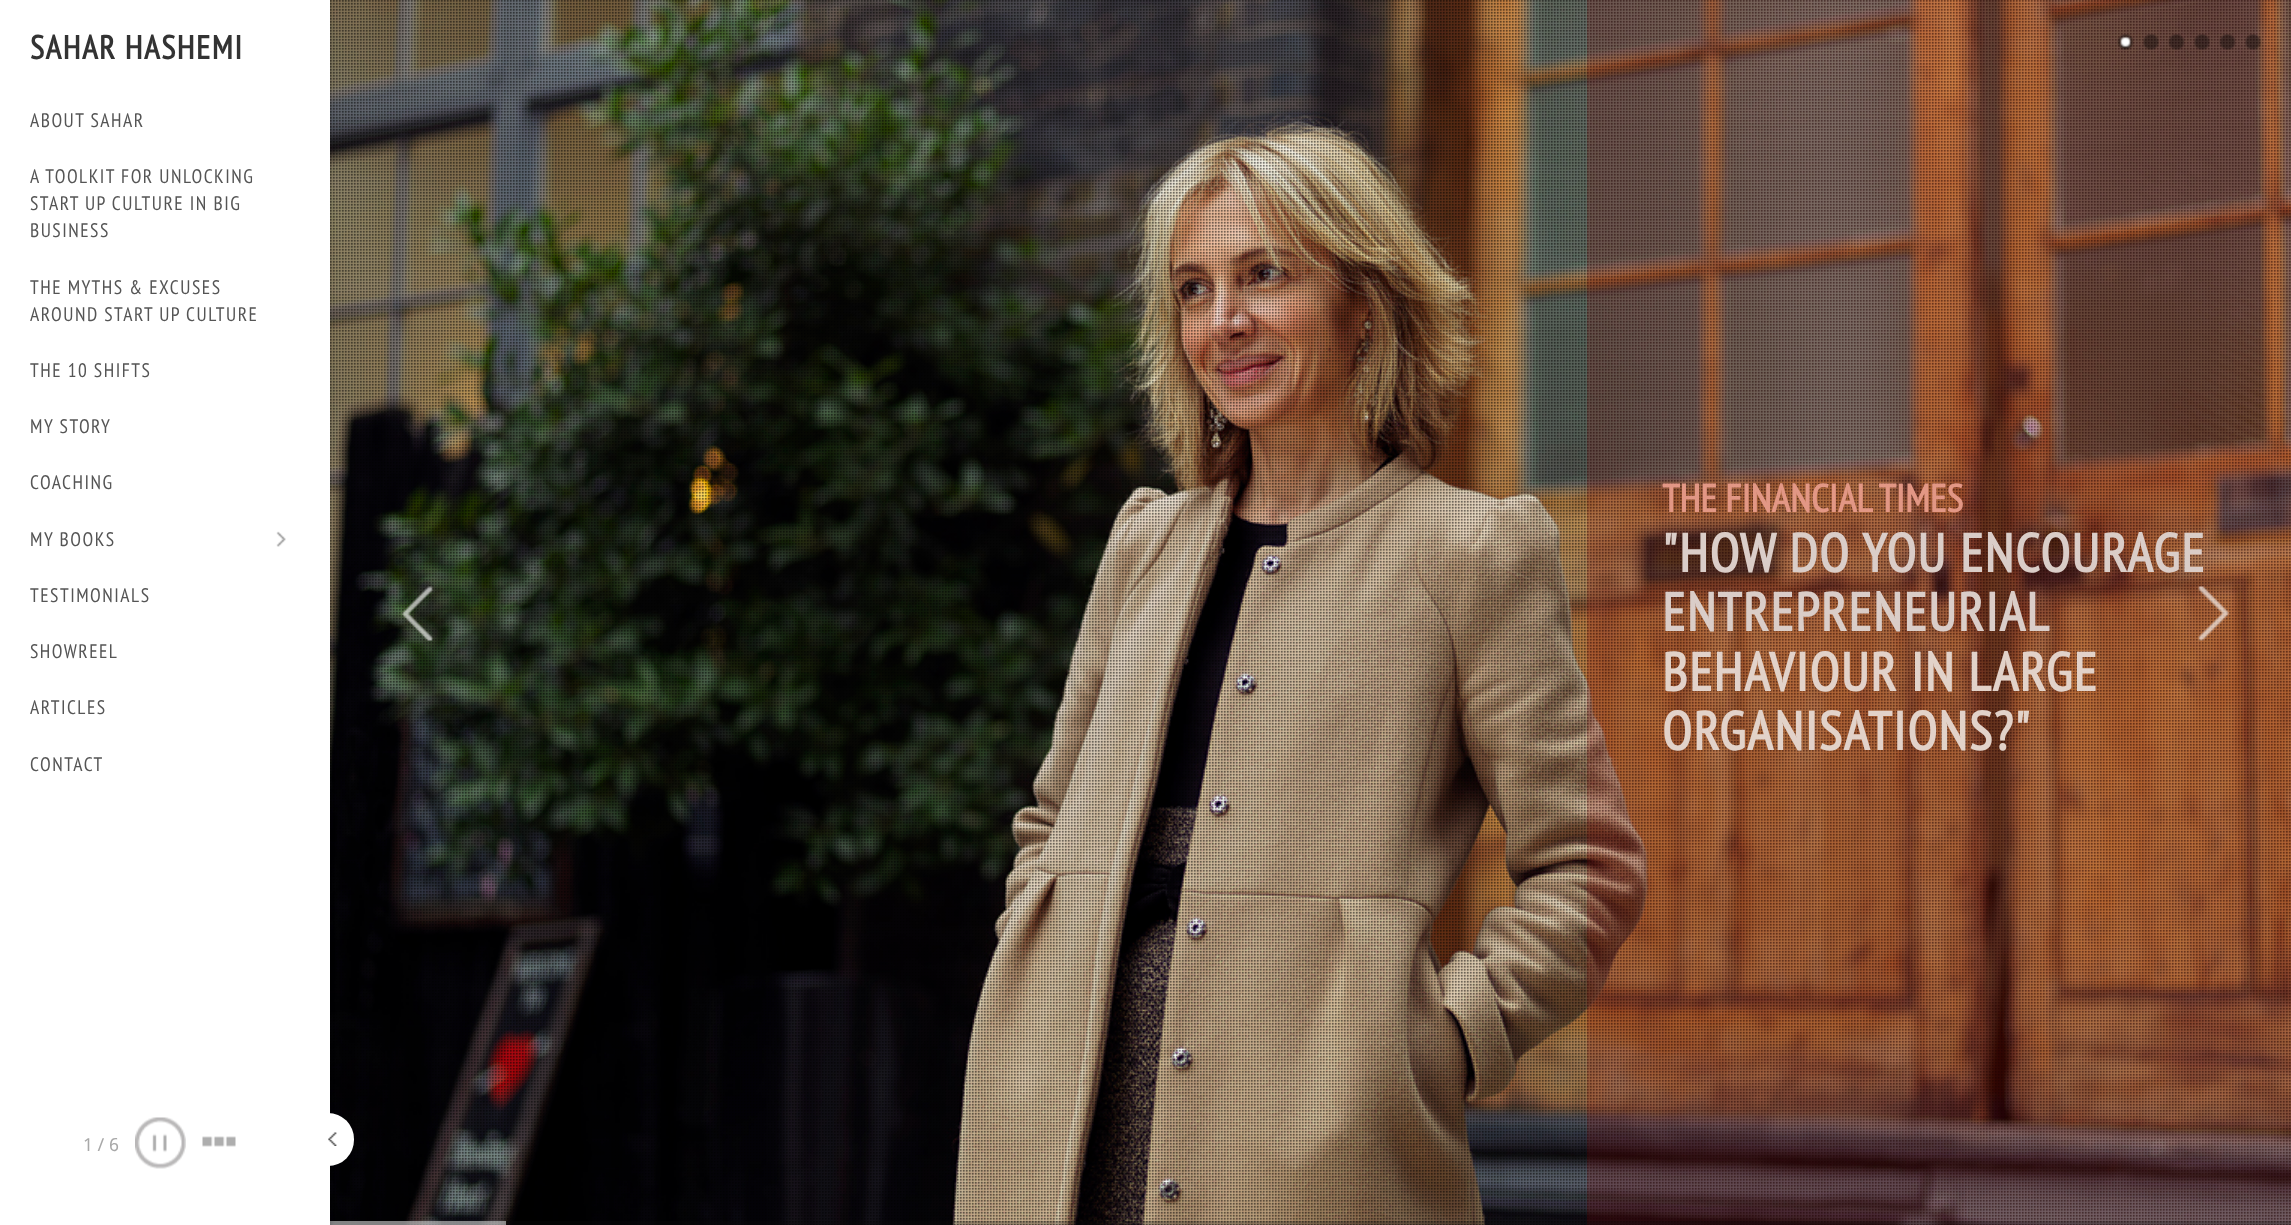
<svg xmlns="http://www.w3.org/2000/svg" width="2291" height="1225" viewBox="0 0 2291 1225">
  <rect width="100%" height="100%" fill="rgb(255,255,255)"/>
  <image x="330" y="0" width="1961" height="1225" href="pic13.png"/>
  <image x="330" y="0" width="1961" height="1225" href="pic14.png"/>
  <image x="330" y="0" width="1961" height="1225" href="pic15.png"/>
  <rect x="1587" y="0" width="704" height="1225" fill="rgba(130,0,0,0.22)"/>
  <rect x="330" y="1221" width="1961" height="4" fill="rgba(16,16,16,0.25)"/>
  <rect x="330" y="1221" width="176" height="4" fill="rgba(255,255,255,0.5)"/>
  <rect x="0" y="0" width="330" height="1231" fill="rgba(0,0,0,0.25)" filter="blur(2px)"/>
  <rect x="0" y="0" width="330" height="1225" fill="rgb(255,255,255)"/>
  <text x="30" y="59" font-family="PT Sans Narrow" font-size="33" font-weight="bold" letter-spacing="1.5" fill="rgb(51,51,51)">SAHAR HASHEMI</text>
  <image x="2117" y="34" width="17" height="16" href="pic1.png"/>
  <image x="2143" y="34" width="16" height="16" href="pic2.png"/>
  <image x="2168" y="34" width="17" height="16" href="pic3.png"/>
  <image x="2194" y="34" width="16" height="16" href="pic4.png"/>
  <image x="2219" y="34" width="17" height="16" href="pic5.png"/>
  <image x="2245" y="34" width="17" height="16" href="pic6.png"/>
  <g font-family="PT Sans Narrow" font-size="19.5" letter-spacing="1.5" fill="rgb(85,85,85)">
    <text x="30" y="127">ABOUT SAHAR</text>
    <text>
      <tspan x="30" y="183">A TOOLKIT FOR UNLOCKING</tspan>
      <tspan x="30" y="210">START UP CULTURE IN BIG</tspan>
      <tspan x="30" y="237">BUSINESS</tspan>
    </text>
    <text>
      <tspan x="30" y="294">THE MYTHS &amp; EXCUSES</tspan>
      <tspan x="30" y="321">AROUND START UP CULTURE</tspan>
    </text>
    <text x="30" y="377">THE 10 SHIFTS</text>
    <text x="30" y="433">MY STORY</text>
    <text x="30" y="489">COACHING</text>
    <text x="30" y="546">MY BOOKS</text>
  </g>
  <image x="276" y="531" width="10" height="16" href="pic7.png"/>
  <g font-family="PT Sans Narrow" font-size="19.5" letter-spacing="1.5" fill="rgb(85,85,85)">
    <text x="30" y="602">TESTIMONIALS</text>
    <text x="30" y="658">SHOWREEL</text>
    <text x="30" y="714">ARTICLES</text>
    <text x="30" y="771">CONTACT</text>
  </g>
  <image x="401" y="586" width="32" height="55" href="pic8.png"/>
  <image x="2198" y="586" width="32" height="55" href="pic9.png"/>
  <image x="135" y="1117" width="51" height="52" href="pic10.png"/>
  <text x="83" y="1151" font-family="Droid Sans" font-size="18" fill="rgb(168,168,168)">1 / 6</text>
  <image x="202" y="1136" width="34" height="11" href="pic11.png"/>
  <rect x="302" y="1113" width="52" height="53" rx="26" fill="rgb(255,255,255)"/>
  <image x="328" y="1132" width="9" height="14" href="pic12.png"/>
  <text x="1662" y="512" font-family="PT Sans Narrow" font-size="39" font-weight="bold" fill="rgb(226,151,133)">THE FINANCIAL TIMES</text>
  <g font-family="PT Sans Narrow" font-size="54" font-weight="bold" letter-spacing="1.5" fill="rgb(218,205,200)">
    <text>
      <tspan x="1662" y="572">"HOW DO YOU ENCOURAGE</tspan>
      <tspan x="1662" y="631">ENTREPRENEURIAL</tspan>
    </text>
  </g>
  <g font-family="PT Sans Narrow" font-size="54" font-weight="bold" letter-spacing="1.5" fill="rgb(226,210,201)">
    <text>
      <tspan x="1662" y="691">BEHAVIOUR IN LARGE</tspan>
      <tspan x="1662" y="750">ORGANISATIONS?"</tspan>
    </text>
  </g>
</svg>
